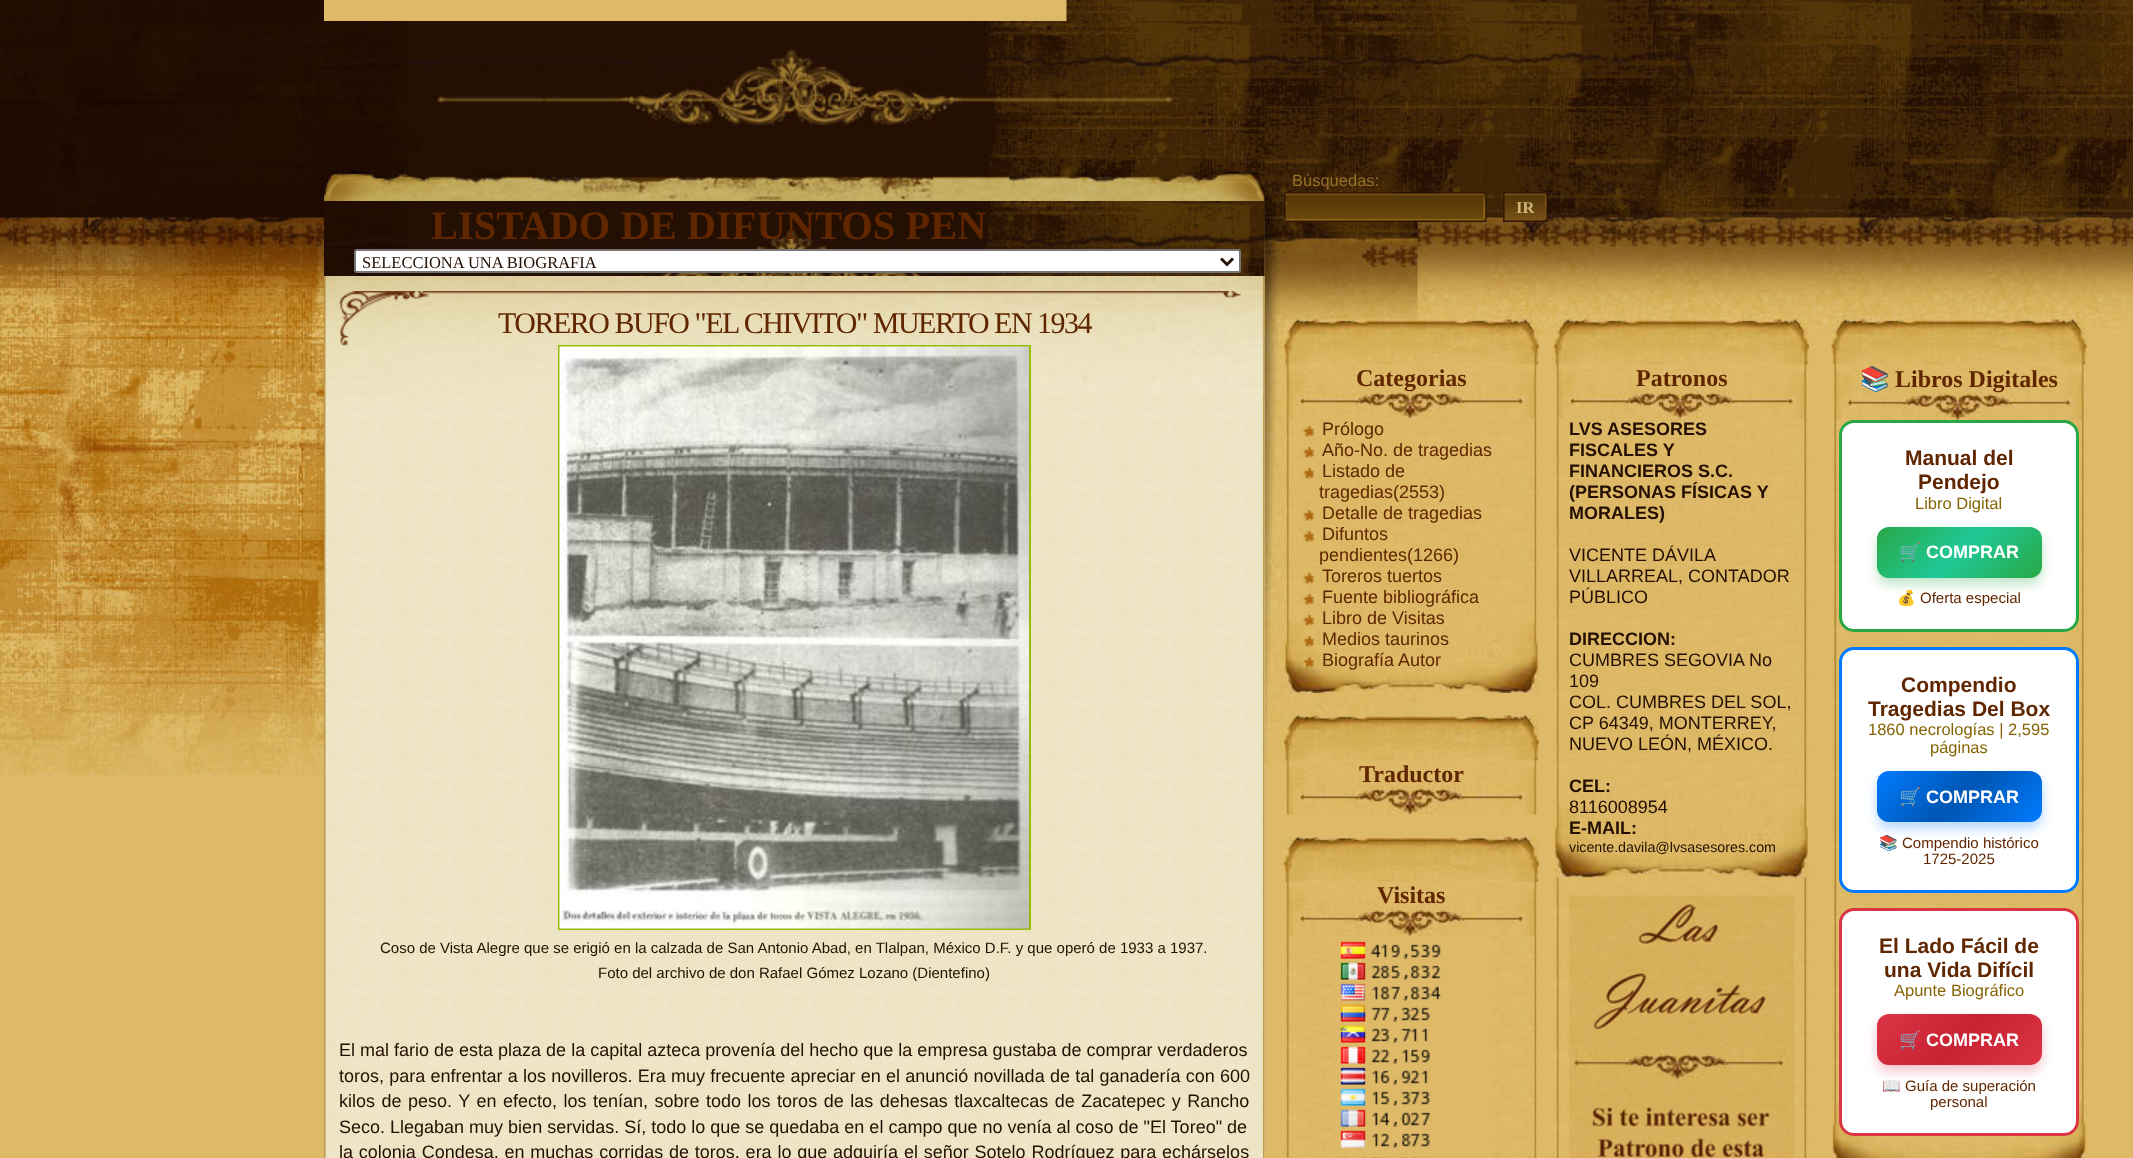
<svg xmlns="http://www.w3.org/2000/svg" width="2133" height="1158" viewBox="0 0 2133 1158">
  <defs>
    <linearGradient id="g1" gradientUnits="userSpaceOnUse" x1="1905" y1="498" x2="2013" y2="606"><stop offset="0" stop-color="rgb(40,167,69)"/><stop offset="0.5" stop-color="rgb(32,201,151)"/><stop offset="1" stop-color="rgb(40,167,69)"/></linearGradient>
    <linearGradient id="g2" gradientUnits="userSpaceOnUse" x1="1905" y1="743" x2="2013" y2="851"><stop offset="0" stop-color="rgb(0,123,255)"/><stop offset="0.5" stop-color="rgb(0,86,179)"/><stop offset="1" stop-color="rgb(0,123,255)"/></linearGradient>
    <linearGradient id="g3" gradientUnits="userSpaceOnUse" x1="1905" y1="986" x2="2013" y2="1094"><stop offset="0" stop-color="rgb(220,53,69)"/><stop offset="0.5" stop-color="rgb(200,35,51)"/><stop offset="1" stop-color="rgb(220,53,69)"/></linearGradient>
  </defs>
  <rect width="100%" height="100%" fill="rgb(222,185,104)"/>
  <image x="0" y="0" width="324" height="776" href="pic1.png"/>
  <image x="1066" y="0" width="1067" height="335" href="pic8.png"/>
  <image x="324" y="21" width="941" height="375" href="pic5.png"/>
  <image x="1264" y="21" width="431" height="77" href="pic2.png"/>
  <text x="1292" y="186" font-family="Liberation Sans" font-size="16.5" fill="rgb(151,113,44)">Búsquedas:</text>
  <image x="324" y="201" width="941" height="375" href="pic6.png"/>
  <image x="1264" y="193" width="154" height="571" href="pic7.png"/>
  <image x="1284" y="192" width="203" height="30" href="pic3.png"/>
  <image x="1503" y="192" width="45" height="30" href="pic4.png"/>
  <text x="1516" y="213" font-family="Liberation Serif" font-size="16.5" font-weight="bold" fill="rgb(206,185,120)">IR</text>
  <text x="431" y="239" font-family="Liberation Serif" font-size="40.5" font-weight="bold" fill="rgb(96,38,0)">LISTADO DE DIFUNTOS PEN</text>
  <rect x="355" y="250" width="885" height="22" rx="2" fill="rgb(255,255,255)" stroke="rgb(118,118,118)" stroke-width="2"/>
  <path d="M1221 258.5L1227 264.5L1233 258.5" fill="none" stroke="rgb(36,15,2)" stroke-width="3"/>
  <text x="362" y="268" font-family="Liberation Serif" font-size="16.5" fill="rgb(36,15,2)">SELECCIONA UNA BIOGRAFIA</text>
  <image x="325" y="276" width="940" height="882" href="pic9.png"/>
  <image x="1263" y="276" width="2" height="882" href="pic10.png"/>
  <image x="324" y="396" width="2" height="762" href="pic11.png"/>
  <image x="324" y="276" width="941" height="120" href="pic12.png"/>
  <text x="498" y="333" font-family="Liberation Serif" font-size="30" letter-spacing="-1.5" fill="rgb(96,38,0)">TORERO BUFO "EL CHIVITO" MUERTO EN 1934</text>
  <rect x="559" y="346" width="471" height="583" fill="none" stroke="rgb(153,186,9)" stroke-width="2"/>
  <image x="339" y="291" width="902" height="55" href="pic13.png"/>
  <image x="559" y="346" width="470" height="583" href="pic14.png"/>
  <g font-family="Liberation Sans" font-size="15" fill="rgb(36,15,2)">
    <text x="380" y="953">Coso de Vista Alegre que se erigió en la calzada de San Antonio Abad, en Tlalpan, México D.F. y que operó de 1933 a 1937.</text>
    <text x="598" y="978">Foto del archivo de don Rafael Gómez Lozano (Dientefino)</text>
  </g>
  <g font-family="Liberation Sans" font-size="18" fill="rgb(36,15,2)">
    <text>
      <tspan x="339" y="1056">El mal fario de esta plaza de la capital azteca provenía del hecho que la empresa gustaba de comprar verdaderos</tspan>
      <tspan x="339" y="1082" word-spacing="0.25">toros, para enfrentar a los novilleros. Era muy frecuente apreciar en el anunció novillada de tal ganadería con 600</tspan>
      <tspan x="339" y="1107" word-spacing="1.5">kilos de peso. Y en efecto, los tenían, sobre todo los toros de las dehesas tlaxcaltecas de Zacatepec y Rancho</tspan>
      <tspan x="339" y="1133">Seco. Llegaban muy bien servidas. Sí, todo lo que se quedaba en el campo que no venía al coso de "El Toreo" de</tspan>
      <tspan x="339" y="1158" word-spacing="0.8">la colonia Condesa, en muchas corridas de toros, era lo que adquiría el señor Sotelo Rodríguez para echárselos</tspan>
    </text>
  </g>
  <image x="1284" y="319" width="255" height="46" href="pic15.png"/>
  <image x="1284" y="418" width="255" height="275" href="pic17.png"/>
  <image x="1284" y="364" width="255" height="55" href="pic16.png"/>
  <text x="1356" y="386" font-family="Liberation Serif" font-size="24" font-weight="bold" fill="rgb(96,38,0)">Categorias</text>
  <image x="1303" y="426" width="11" height="11" href="pic18.png"/>
  <text x="1322" y="435" font-family="Liberation Sans" font-size="18" fill="rgb(96,38,0)">Prólogo</text>
  <image x="1303" y="447" width="11" height="11" href="pic19.png"/>
  <text x="1322" y="456" font-family="Liberation Sans" font-size="18" fill="rgb(96,38,0)">Año-No. de tragedias</text>
  <image x="1303" y="468" width="11" height="11" href="pic20.png"/>
  <g font-family="Liberation Sans" font-size="18" fill="rgb(96,38,0)">
    <text x="1322" y="477">Listado de</text>
    <text x="1319" y="498">tragedias(2553)</text>
  </g>
  <image x="1303" y="510" width="11" height="11" href="pic21.png"/>
  <text x="1322" y="519" font-family="Liberation Sans" font-size="18" fill="rgb(96,38,0)">Detalle de tragedias</text>
  <image x="1303" y="531" width="11" height="11" href="pic22.png"/>
  <g font-family="Liberation Sans" font-size="18" fill="rgb(96,38,0)">
    <text x="1322" y="540">Difuntos</text>
    <text x="1319" y="561">pendientes(1266)</text>
  </g>
  <image x="1303" y="573" width="11" height="11" href="pic23.png"/>
  <text x="1322" y="582" font-family="Liberation Sans" font-size="18" fill="rgb(96,38,0)">Toreros tuertos</text>
  <image x="1303" y="594" width="11" height="11" href="pic24.png"/>
  <text x="1322" y="603" font-family="Liberation Sans" font-size="18" fill="rgb(96,38,0)">Fuente bibliográfica</text>
  <image x="1303" y="615" width="11" height="11" href="pic25.png"/>
  <text x="1322" y="624" font-family="Liberation Sans" font-size="18" fill="rgb(96,38,0)">Libro de Visitas</text>
  <image x="1303" y="636" width="11" height="11" href="pic26.png"/>
  <text x="1322" y="645" font-family="Liberation Sans" font-size="18" fill="rgb(96,38,0)">Medios taurinos</text>
  <image x="1303" y="657" width="11" height="11" href="pic27.png"/>
  <text x="1322" y="666" font-family="Liberation Sans" font-size="18" fill="rgb(96,38,0)">Biografía Autor</text>
  <image x="1284" y="715" width="255" height="46" href="pic28.png"/>
  <image x="1284" y="760" width="255" height="55" href="pic29.png"/>
  <text x="1359" y="782" font-family="Liberation Serif" font-size="24" font-weight="bold" fill="rgb(96,38,0)">Traductor</text>
  <image x="1284" y="837" width="255" height="45" href="pic30.png"/>
  <image x="1284" y="882" width="255" height="54" href="pic31.png"/>
  <text x="1377" y="903" font-family="Liberation Serif" font-size="24" font-weight="bold" fill="rgb(96,38,0)">Visitas</text>
  <image x="1284" y="936" width="255" height="222" href="pic32.png"/>
  <image x="1334" y="936" width="158" height="222" href="pic33.png"/>
  <image x="1554" y="319" width="255" height="46" href="pic34.png"/>
  <image x="1554" y="418" width="255" height="460" href="pic36.png"/>
  <image x="1554" y="364" width="255" height="55" href="pic35.png"/>
  <text x="1636" y="386" font-family="Liberation Serif" font-size="24" font-weight="bold" fill="rgb(96,38,0)">Patronos</text>
  <g font-family="Liberation Sans" font-size="18" font-weight="bold" fill="rgb(36,15,2)">
    <text>
      <tspan x="1569" y="435">LVS ASESORES</tspan>
      <tspan x="1569" y="456">FISCALES Y</tspan>
      <tspan x="1569" y="477">FINANCIEROS S.C.</tspan>
      <tspan x="1569" y="498">(PERSONAS FÍSICAS Y</tspan>
      <tspan x="1569" y="519">MORALES)</tspan>
    </text>
  </g>
  <g font-family="Liberation Sans" font-size="18" fill="rgb(36,15,2)">
    <text>
      <tspan x="1569" y="561">VICENTE DÁVILA</tspan>
      <tspan x="1569" y="582">VILLARREAL, CONTADOR</tspan>
      <tspan x="1569" y="603">PÚBLICO</tspan>
    </text>
  </g>
  <text x="1569" y="645" font-family="Liberation Sans" font-size="18" font-weight="bold" fill="rgb(36,15,2)">DIRECCION:</text>
  <g font-family="Liberation Sans" font-size="18" fill="rgb(36,15,2)">
    <text>
      <tspan x="1569" y="666">CUMBRES SEGOVIA No</tspan>
      <tspan x="1569" y="687">109</tspan>
      <tspan x="1569" y="708">COL. CUMBRES DEL SOL,</tspan>
      <tspan x="1569" y="729">CP 64349, MONTERREY,</tspan>
      <tspan x="1569" y="750">NUEVO LEÓN, MÉXICO.</tspan>
    </text>
  </g>
  <text x="1569" y="792" font-family="Liberation Sans" font-size="18" font-weight="bold" fill="rgb(36,15,2)">CEL:</text>
  <text x="1569" y="813" font-family="Liberation Sans" font-size="18" fill="rgb(36,15,2)">8116008954</text>
  <text x="1569" y="834" font-family="Liberation Sans" font-size="18" font-weight="bold" fill="rgb(36,15,2)">E-MAIL:</text>
  <text x="1569" y="852" font-family="Liberation Sans" font-size="14.25" fill="rgb(36,15,2)">vicente.davila@lvsasesores.com</text>
  <image x="1554" y="877" width="255" height="281" href="pic37.png"/>
  <image x="1569" y="895" width="225" height="263" href="pic38.png"/>
  <image x="1831" y="319" width="256" height="49" href="pic39.png"/>
  <image x="1832" y="364" width="255" height="56" href="pic40.png"/>
  <text x="1860" y="387" font-family="Noto Color Emoji" font-size="24" font-weight="bold" fill="rgb(96,38,0)">📚</text>
  <text x="1895" y="387" font-family="Liberation Serif" font-size="24" font-weight="bold" fill="rgb(96,38,0)">Libros Digitales</text>
  <image x="1831" y="420" width="256" height="738" href="pic41.png"/>
  <rect x="1840.5" y="421.5" width="237" height="209" rx="13.5" fill="rgb(255,255,255)" stroke="rgb(40,167,69)" stroke-width="3"/>
  <g font-family="Liberation Sans" font-size="21" font-weight="bold" fill="rgb(96,38,0)">
    <text x="1905" y="465">Manual del</text>
    <text x="1918" y="489">Pendejo</text>
  </g>
  <text x="1915" y="509" font-family="Liberation Sans" font-size="16.5" fill="rgb(133,100,4)">Libro Digital</text>
  <rect x="1877" y="533" width="165" height="51" rx="12" fill="rgba(40,167,69,0.3)" filter="blur(6px)"/>
  <rect x="1877" y="527" width="165" height="51" rx="12" fill="url(#g1)"/>
  <text x="1899" y="558" font-family="Noto Color Emoji" font-size="18" font-weight="bold" fill="rgb(255,255,255)">🛒</text>
  <text x="1926" y="558" font-family="Liberation Sans" font-size="18" font-weight="bold" fill="rgb(255,255,255)">COMPRAR</text>
  <text x="1897" y="603" font-family="Noto Color Emoji" font-size="15" fill="rgb(96,38,0)">💰</text>
  <text x="1920" y="603" font-family="Liberation Sans" font-size="15" fill="rgb(96,38,0)">Oferta especial</text>
  <rect x="1840.5" y="648.5" width="237" height="243" rx="13.5" fill="rgb(255,255,255)" stroke="rgb(0,123,255)" stroke-width="3"/>
  <g font-family="Liberation Sans" font-size="21" font-weight="bold" fill="rgb(96,38,0)">
    <text x="1901" y="692">Compendio</text>
    <text x="1868" y="716">Tragedias Del Box</text>
  </g>
  <g font-family="Liberation Sans" font-size="16.5" fill="rgb(133,100,4)">
    <text x="1868" y="735">1860 necrologías | 2,595</text>
    <text x="1930" y="753">páginas</text>
  </g>
  <rect x="1877" y="777" width="165" height="51" rx="12" fill="rgba(0,123,255,0.3)" filter="blur(6px)"/>
  <rect x="1877" y="771" width="165" height="51" rx="12" fill="url(#g2)"/>
  <text x="1899" y="803" font-family="Noto Color Emoji" font-size="18" font-weight="bold" fill="rgb(255,255,255)">🛒</text>
  <text x="1926" y="803" font-family="Liberation Sans" font-size="18" font-weight="bold" fill="rgb(255,255,255)">COMPRAR</text>
  <text x="1879" y="848" font-family="Noto Color Emoji" font-size="15" fill="rgb(96,38,0)">📚</text>
  <g font-family="Liberation Sans" font-size="15" fill="rgb(96,38,0)">
    <text x="1902" y="848">Compendio histórico</text>
    <text x="1923" y="864">1725-2025</text>
  </g>
  <rect x="1840.5" y="909.5" width="237" height="225" rx="13.5" fill="rgb(255,255,255)" stroke="rgb(220,53,69)" stroke-width="3"/>
  <g font-family="Liberation Sans" font-size="21" font-weight="bold" fill="rgb(96,38,0)">
    <text x="1879" y="953">El Lado Fácil de</text>
    <text x="1884" y="977">una Vida Difícil</text>
  </g>
  <text x="1894" y="996" font-family="Liberation Sans" font-size="16.5" fill="rgb(133,100,4)">Apunte Biográfico</text>
  <rect x="1877" y="1020" width="165" height="51" rx="12" fill="rgba(220,53,69,0.3)" filter="blur(6px)"/>
  <rect x="1877" y="1014" width="165" height="51" rx="12" fill="url(#g3)"/>
  <text x="1899" y="1046" font-family="Noto Color Emoji" font-size="18" font-weight="bold" fill="rgb(255,255,255)">🛒</text>
  <text x="1926" y="1046" font-family="Liberation Sans" font-size="18" font-weight="bold" fill="rgb(255,255,255)">COMPRAR</text>
  <text x="1882" y="1091" font-family="Noto Color Emoji" font-size="15" fill="rgb(96,38,0)">📖</text>
  <g font-family="Liberation Sans" font-size="15" fill="rgb(96,38,0)">
    <text x="1905" y="1091">Guía de superación</text>
    <text x="1930" y="1107">personal</text>
  </g>
</svg>
